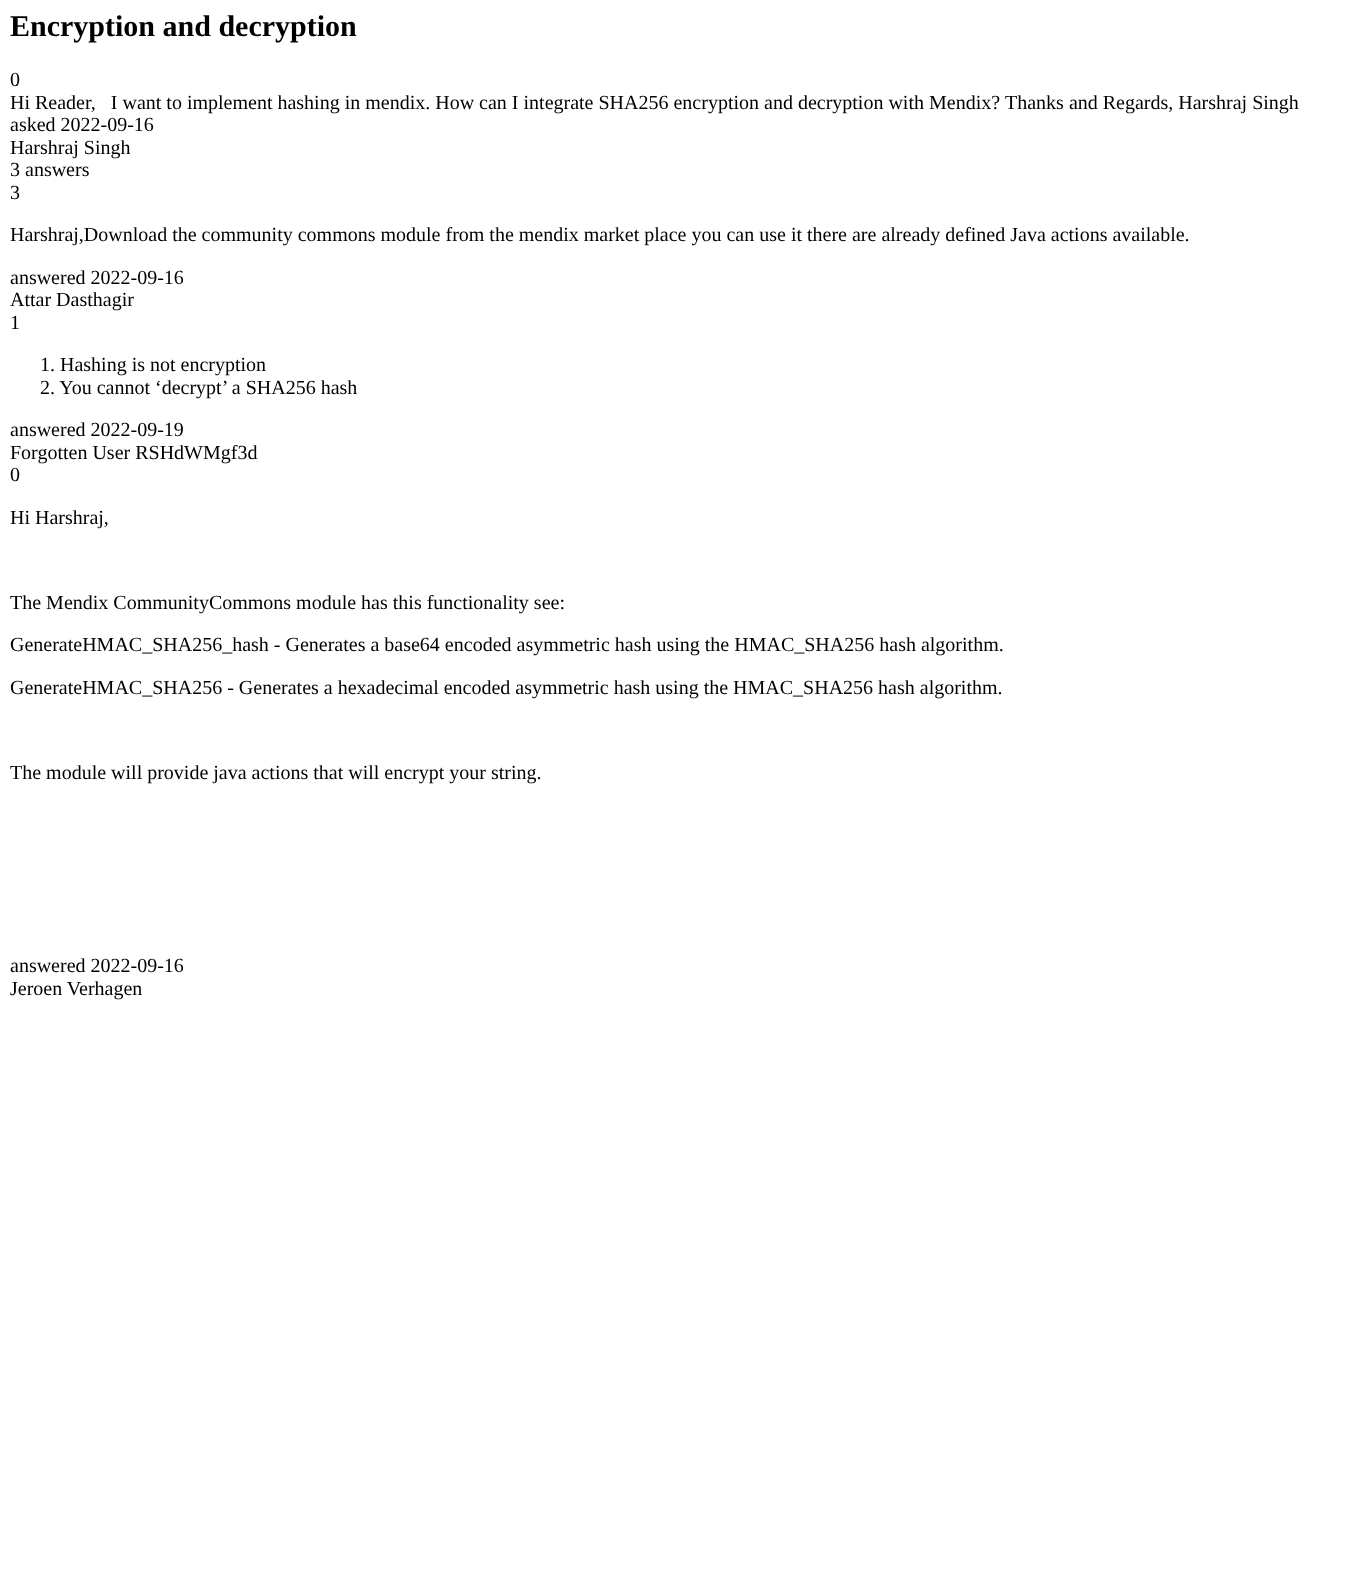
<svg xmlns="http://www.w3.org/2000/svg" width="1353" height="1592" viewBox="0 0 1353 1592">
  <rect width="100%" height="100%" fill="rgb(255,255,255)"/>
  <text x="10" y="36" font-family="Liberation Serif" font-size="30" font-weight="bold" fill="rgb(0,0,0)">Encryption and decryption</text>
  <g font-family="Liberation Serif" font-size="20" fill="rgb(0,0,0)">
    <text xml:space="preserve"><tspan x="10" y="86">0</tspan><tspan x="10" y="109">Hi Reader,   I want to implement hashing in mendix. How can I integrate SHA256 encryption and decryption with Mendix?</tspan></text>
    <text x="1005" y="109">Thanks and Regards, Harshraj Singh</text>
    <text>
      <tspan x="10" y="131">asked 2022-09-16</tspan>
      <tspan x="10" y="154">Harshraj Singh</tspan>
      <tspan x="10" y="176">3 answers</tspan>
      <tspan x="10" y="199">3</tspan>
    </text>
    <text x="10" y="241">Harshraj,Download the community commons module from the mendix market place you can use it there are already defined Java actions available.</text>
    <text>
      <tspan x="10" y="284">answered 2022-09-16</tspan>
      <tspan x="10" y="306">Attar Dasthagir</tspan>
      <tspan x="10" y="329">1</tspan>
    </text>
    <text>
      <tspan x="40" y="371">1. Hashing is not encryption</tspan>
      <tspan x="40" y="394">2. You cannot ‘decrypt’ a SHA256 hash</tspan>
    </text>
    <text>
      <tspan x="10" y="436">answered 2022-09-19</tspan>
      <tspan x="10" y="459">Forgotten User RSHdWMgf3d</tspan>
      <tspan x="10" y="481">0</tspan>
    </text>
    <text x="10" y="524">Hi Harshraj,</text>
    <text x="10" y="609">The Mendix CommunityCommons module has this functionality see:</text>
    <text x="10" y="651">GenerateHMAC_SHA256_hash - Generates a base64 encoded asymmetric hash using the HMAC_SHA256 hash algorithm.</text>
    <text x="10" y="694">GenerateHMAC_SHA256 - Generates a hexadecimal encoded asymmetric hash using the HMAC_SHA256 hash algorithm.</text>
    <text x="10" y="779">The module will provide java actions that will encrypt your string.</text>
    <text>
      <tspan x="10" y="972">answered 2022-09-16</tspan>
      <tspan x="10" y="995">Jeroen Verhagen</tspan>
    </text>
  </g>
</svg>
